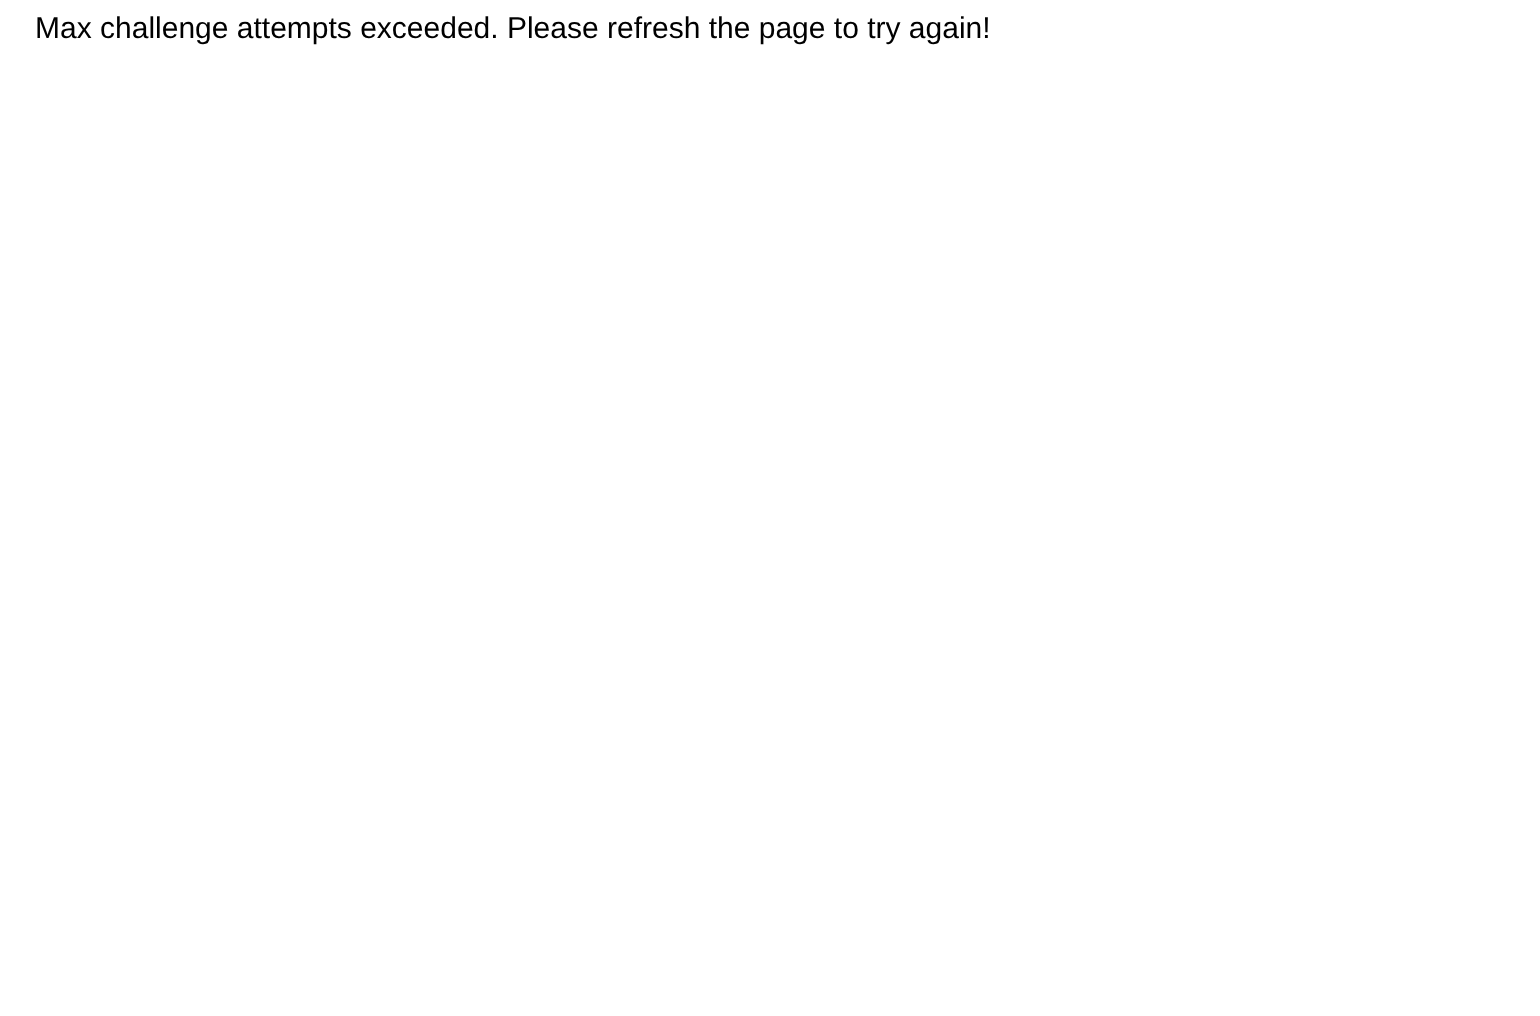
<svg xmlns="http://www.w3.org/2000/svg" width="1540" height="1016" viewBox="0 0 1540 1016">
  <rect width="100%" height="100%" fill="rgb(255,255,255)"/>
  <text x="35" y="38" font-family="Liberation Sans" font-size="30" fill="rgb(0,0,0)">Max challenge attempts exceeded. Please refresh the page to try again!</text>
</svg>
